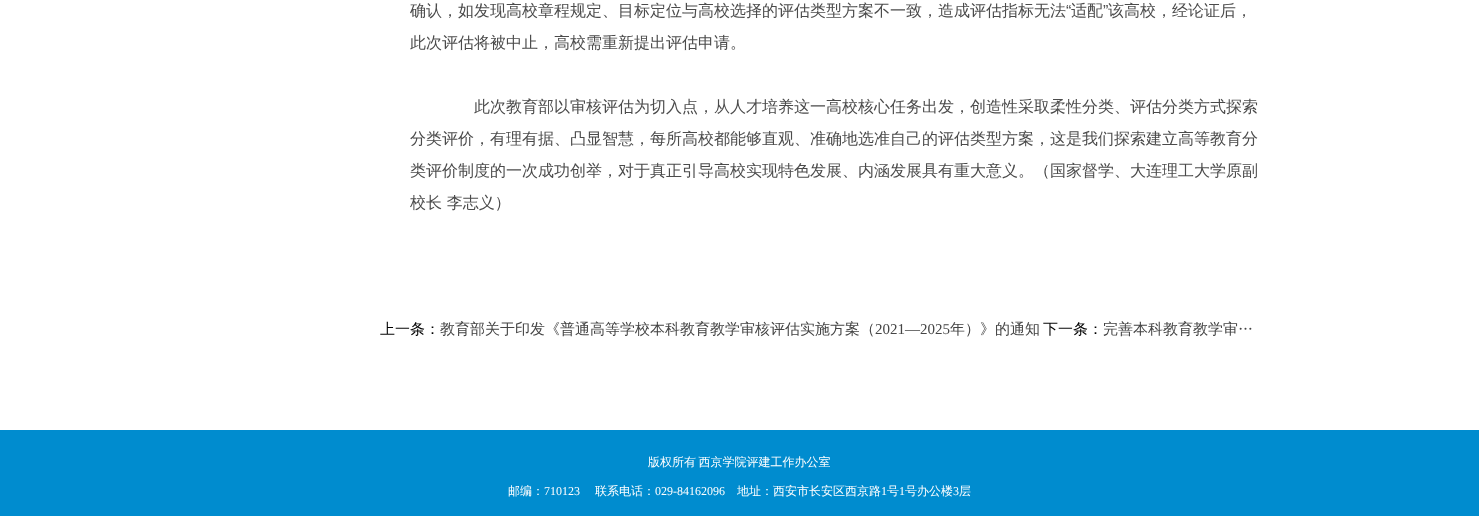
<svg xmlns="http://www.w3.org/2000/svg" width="1479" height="516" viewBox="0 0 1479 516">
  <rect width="100%" height="100%" fill="rgb(255,255,255)"/>
  <text x="410" y="16" font-family="WenQuanYi Zen Hei" font-size="16" font-weight="500" fill="rgb(75,75,75)">确认，如发现高校章程规定、目标定位与高校选择的评估类型方案不一致，造成评估指标无法</text>
  <text x="1066" y="16" font-family="Liberation Sans" font-size="16" fill="rgb(75,75,75)">“</text>
  <text x="1071" y="16" font-family="WenQuanYi Zen Hei" font-size="16" font-weight="500" fill="rgb(75,75,75)">适配</text>
  <text x="1103" y="16" font-family="Liberation Sans" font-size="16" fill="rgb(75,75,75)">”</text>
  <g font-family="WenQuanYi Zen Hei" font-size="16" font-weight="500" fill="rgb(75,75,75)">
    <text x="1108" y="16">该高校，经论证后，</text>
    <text x="410" y="48">此次评估将被中止，高校需重新提出评估申请。</text>
    <text x="474" y="112">此次教育部以审核评估为切入点，从人才培养这一高校核心任务出发，创造性采取柔性分类、评估分类方式探索</text>
    <text x="410" y="144">分类评价，有理有据、凸显智慧，每所高校都能够直观、准确地选准自己的评估类型方案，这是我们探索建立高等教育分</text>
    <text x="410" y="176">类评价制度的一次成功创举，对于真正引导高校实现特色发展、内涵发展具有重大意义。（国家督学、大连理工大学原副</text>
    <text x="410" y="208">校长 李志义）</text>
  </g>
  <text x="380" y="334" font-family="WenQuanYi Zen Hei" font-size="15" font-weight="500" fill="rgb(0,0,0)">上一条：</text>
  <text x="440" y="334" font-family="WenQuanYi Zen Hei" font-size="15" font-weight="500" fill="rgb(68,68,68)">教育部关于印发《普通高等学校本科教育教学审核评估实施方案（</text>
  <text x="875" y="334" font-family="Liberation Serif" font-size="15" fill="rgb(68,68,68)">2021—2025</text>
  <text x="950" y="334" font-family="WenQuanYi Zen Hei" font-size="15" font-weight="500" fill="rgb(68,68,68)">年）》的通知</text>
  <text x="1043" y="334" font-family="WenQuanYi Zen Hei" font-size="15" font-weight="500" fill="rgb(0,0,0)">下一条：</text>
  <text x="1103" y="334" word-spacing="-1" font-family="WenQuanYi Zen Hei" font-size="15" font-weight="500" fill="rgb(68,68,68)">完善本科教育教学审…</text>
  <rect x="0" y="430" width="1479" height="86" fill="rgb(0,140,207)"/>
  <g font-family="WenQuanYi Zen Hei" font-size="12" font-weight="500" fill="rgb(255,255,255)">
    <text x="648" y="466" word-spacing="-1">版权所有 西京学院评建工作办公室</text>
    <text x="508" y="495">邮编：</text>
  </g>
  <text x="544" y="495" font-family="Liberation Serif" font-size="12" fill="rgb(255,255,255)">710123</text>
  <text x="595" y="495" font-family="WenQuanYi Zen Hei" font-size="12" font-weight="500" fill="rgb(255,255,255)">联系电话：</text>
  <text x="655" y="495" font-family="Liberation Serif" font-size="12" fill="rgb(255,255,255)">029-84162096</text>
  <text x="737" y="495" font-family="WenQuanYi Zen Hei" font-size="12" font-weight="500" fill="rgb(255,255,255)">地址：西安市长安区西京路</text>
  <text x="881" y="495" font-family="Liberation Serif" font-size="12" fill="rgb(255,255,255)">1</text>
  <text x="887" y="495" font-family="WenQuanYi Zen Hei" font-size="12" font-weight="500" fill="rgb(255,255,255)">号</text>
  <text x="899" y="495" font-family="Liberation Serif" font-size="12" fill="rgb(255,255,255)">1</text>
  <text x="905" y="495" font-family="WenQuanYi Zen Hei" font-size="12" font-weight="500" fill="rgb(255,255,255)">号办公楼</text>
  <text x="953" y="495" font-family="Liberation Serif" font-size="12" fill="rgb(255,255,255)">3</text>
  <text x="959" y="495" font-family="WenQuanYi Zen Hei" font-size="12" font-weight="500" fill="rgb(255,255,255)">层</text>
</svg>
